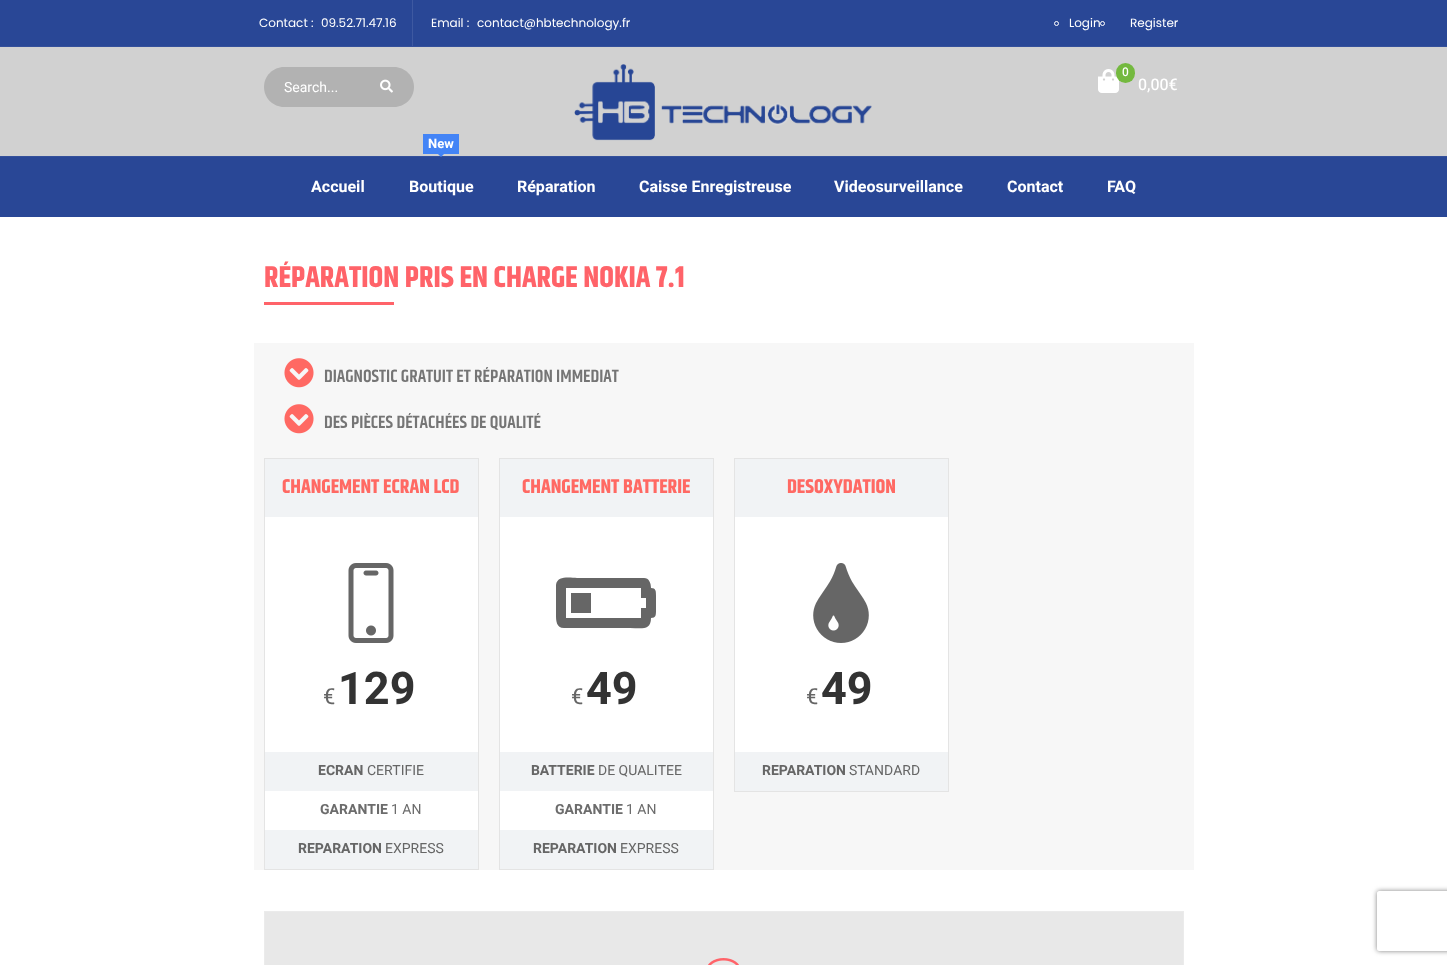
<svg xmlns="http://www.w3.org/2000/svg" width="1447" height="965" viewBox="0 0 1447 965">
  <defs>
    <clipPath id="clip1"><path d="M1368 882H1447V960H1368ZM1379 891H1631C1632 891 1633 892 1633 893V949C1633 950 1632 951 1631 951H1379C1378 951 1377 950 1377 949V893C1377 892 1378 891 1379 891Z" clip-rule="evenodd"/></clipPath>
  </defs>
  <rect width="100%" height="100%" fill="rgb(255,255,255)"/>
  <rect x="0" y="0" width="1447" height="46" fill="rgb(41,71,150)"/>
  <rect x="0" y="46" width="1447" height="1" fill="rgb(52,80,155)"/>
  <g font-family="Poppins" font-size="12" fill="rgb(255,255,255)">
    <text x="259" y="27">Contact :</text>
    <text x="321" y="27">09.52.71.47.16</text>
  </g>
  <rect x="412" y="0" width="1" height="46" fill="rgb(62,89,161)"/>
  <g font-family="Poppins" font-size="12" fill="rgb(255,255,255)">
    <text x="431" y="27">Email :</text>
    <text x="477" y="27">contact@hbtechnology.fr</text>
  </g>
  <circle cx="1056.5" cy="23.5" r="2" fill="none" stroke="rgb(255,255,255)"/>
  <text x="1069" y="27" font-family="Poppins" font-size="12" fill="rgb(255,255,255)">Login</text>
  <circle cx="1102.5" cy="23.5" r="2" fill="none" stroke="rgb(255,255,255)"/>
  <text x="1130" y="27" font-family="Poppins" font-size="12" fill="rgb(255,255,255)">Register</text>
  <rect x="0" y="47" width="1447" height="109" fill="rgb(209,209,209)"/>
  <path d="M284 67H360V107H284C273 107 264 98 264 87C264 76 273 67 284 67Z" fill="rgb(178,178,178)"/>
  <text x="284" y="92" font-family="Heebo" font-size="14" fill="rgb(255,255,255)">Search...</text>
  <path d="M360 67H394C405 67 414 76 414 87C414 98 405 107 394 107H360Z" fill="rgb(178,178,178)"/>
  <image x="380" y="79" width="13" height="14" href="pic1.png"/>
  <image x="574" y="64" width="298" height="77" href="pic2.png"/>
  <image x="1098" y="69" width="21" height="24" href="pic3.png"/>
  <rect x="1116" y="63" width="19" height="20" rx="9.5" fill="rgb(116,185,63)"/>
  <text x="1122" y="76" font-family="Heebo" font-size="12" font-weight="500" fill="rgb(255,255,255)">0</text>
  <text x="1138" y="90" font-family="Heebo" font-size="16" font-weight="500" fill="rgb(255,255,255)">0,00€</text>
  <rect x="0" y="157" width="1447" height="60" fill="rgb(41,71,150)"/>
  <rect x="0" y="156" width="1447" height="1" fill="rgb(52,80,155)"/>
  <text x="311" y="192" font-family="Heebo" font-size="16" font-weight="bold" fill="rgb(255,255,255)">Accueil</text>
  <rect x="423" y="134" width="36" height="20" fill="rgb(67,132,246)"/>
  <text x="428" y="148" font-family="Heebo" font-size="13" font-weight="bold" fill="rgb(255,255,255)">New</text>
  <path d="M438 154H444L441 157Z" fill="rgb(67,132,246)"/>
  <g font-family="Heebo" font-size="16" font-weight="bold" fill="rgb(255,255,255)">
    <text x="409" y="192">Boutique</text>
    <text x="517" y="192">Réparation</text>
    <text x="639" y="192">Caisse Enregistreuse</text>
    <text x="834" y="192">Videosurveillance</text>
    <text x="1007" y="192">Contact</text>
    <text x="1107" y="192">FAQ</text>
  </g>
  <text x="264" y="287" font-family="Khand" font-size="30" font-weight="bold" fill="rgb(255,99,105)">RÉPARATION PRIS EN CHARGE NOKIA 7.1</text>
  <rect x="264" y="302" width="130" height="3" fill="rgb(255,99,105)"/>
  <rect x="254" y="343" width="940" height="527" fill="rgb(247,247,247)"/>
  <image x="284" y="358" width="30" height="30" href="pic4.png"/>
  <text x="324" y="382" font-family="Khand" font-size="18" font-weight="600" fill="rgb(117,117,117)">DIAGNOSTIC GRATUIT ET RÉPARATION IMMEDIAT</text>
  <image x="284" y="404" width="30" height="30" href="pic4.png"/>
  <text x="324" y="428" font-family="Khand" font-size="18" font-weight="600" fill="rgb(117,117,117)">DES PIÈCES DÉTACHÉES DE QUALITÉ</text>
  <rect x="265" y="517" width="213" height="313" fill="rgb(255,255,255)"/>
  <rect x="264.5" y="458.5" width="214" height="411" fill="none" stroke="rgb(228,228,228)"/>
  <rect x="265" y="459" width="213" height="58" fill="rgb(241,243,245)"/>
  <text x="282" y="493" font-family="Khand" font-size="20" font-weight="bold" fill="rgb(255,105,99)">CHANGEMENT ECRAN LCD</text>
  <image x="348" y="563" width="46" height="80" href="pic5.png"/>
  <text x="323" y="704" font-family="Heebo" font-size="22" fill="rgb(102,102,102)">€</text>
  <text x="338" y="704" font-family="Heebo" font-size="45" font-weight="bold" fill="rgb(51,51,51)">129</text>
  <rect x="265" y="752" width="213" height="39" fill="rgb(241,243,245)"/>
  <text x="318" y="775" font-family="Heebo" font-size="14" font-weight="bold" fill="rgb(102,102,102)">ECRAN</text>
  <text x="367" y="775" font-family="Heebo" font-size="14" fill="rgb(102,102,102)">CERTIFIE</text>
  <text x="320" y="814" font-family="Heebo" font-size="14" font-weight="bold" fill="rgb(108,108,108)">GARANTIE</text>
  <text x="391" y="814" font-family="Heebo" font-size="14" fill="rgb(108,108,108)">1 AN</text>
  <rect x="265" y="830" width="213" height="39" fill="rgb(241,243,245)"/>
  <text x="298" y="853" font-family="Heebo" font-size="14" font-weight="bold" fill="rgb(102,102,102)">REPARATION</text>
  <text x="385" y="853" font-family="Heebo" font-size="14" fill="rgb(102,102,102)">EXPRESS</text>
  <rect x="500" y="517" width="213" height="313" fill="rgb(255,255,255)"/>
  <rect x="499.5" y="458.5" width="214" height="411" fill="none" stroke="rgb(228,228,228)"/>
  <rect x="500" y="459" width="213" height="58" fill="rgb(241,243,245)"/>
  <text x="522" y="493" font-family="Khand" font-size="20" font-weight="bold" fill="rgb(255,105,99)">CHANGEMENT BATTERIE</text>
  <path d="M641 588V598H646V608H641V618H566V588ZM644 578H577C571 578 557 575 556 585V615C556 620 556 628 564 628H630C641 628 651 631 651 618C656 618 656 615 656 610V596C656 591 656 588 651 588C651 583 649 578 644 578ZM591 593H571V613H591Z" fill="rgb(102,102,102)"/>
  <text x="571" y="704" font-family="Heebo" font-size="22" fill="rgb(102,102,102)">€</text>
  <text x="586" y="704" font-family="Heebo" font-size="45" font-weight="bold" fill="rgb(51,51,51)">49</text>
  <rect x="500" y="752" width="213" height="39" fill="rgb(241,243,245)"/>
  <text x="531" y="775" font-family="Heebo" font-size="14" font-weight="bold" fill="rgb(102,102,102)">BATTERIE</text>
  <text x="598" y="775" font-family="Heebo" font-size="14" fill="rgb(102,102,102)">DE QUALITEE</text>
  <text x="555" y="814" font-family="Heebo" font-size="14" font-weight="bold" fill="rgb(108,108,108)">GARANTIE</text>
  <text x="626" y="814" font-family="Heebo" font-size="14" fill="rgb(108,108,108)">1 AN</text>
  <rect x="500" y="830" width="213" height="39" fill="rgb(241,243,245)"/>
  <text x="533" y="853" font-family="Heebo" font-size="14" font-weight="bold" fill="rgb(102,102,102)">REPARATION</text>
  <text x="620" y="853" font-family="Heebo" font-size="14" fill="rgb(102,102,102)">EXPRESS</text>
  <rect x="735" y="517" width="213" height="235" fill="rgb(255,255,255)"/>
  <rect x="734.5" y="458.5" width="214" height="333" fill="none" stroke="rgb(228,228,228)"/>
  <rect x="735" y="459" width="213" height="58" fill="rgb(241,243,245)"/>
  <text x="787" y="493" font-family="Khand" font-size="20" font-weight="bold" fill="rgb(255,105,99)">DESOXYDATION</text>
  <image x="813" y="563" width="56" height="80" href="pic6.png"/>
  <text x="806" y="704" font-family="Heebo" font-size="22" fill="rgb(102,102,102)">€</text>
  <text x="821" y="704" font-family="Heebo" font-size="45" font-weight="bold" fill="rgb(51,51,51)">49</text>
  <rect x="735" y="752" width="213" height="39" fill="rgb(241,243,245)"/>
  <text x="762" y="775" font-family="Heebo" font-size="14" font-weight="bold" fill="rgb(102,102,102)">REPARATION</text>
  <text x="849" y="775" font-family="Heebo" font-size="14" fill="rgb(102,102,102)">STANDARD</text>
  <rect x="264.5" y="911.5" width="919" height="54" fill="rgb(232,232,232)" stroke="rgb(235,235,235)"/>
  <image x="708" y="958" width="31" height="7" href="pic7.png"/>
  <g clip-path="url(#clip1)">
    <rect x="1377" y="891" width="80" height="60" rx="2" fill="rgb(128,128,128)" filter="blur(2.5px)"/>
  </g>
</svg>
